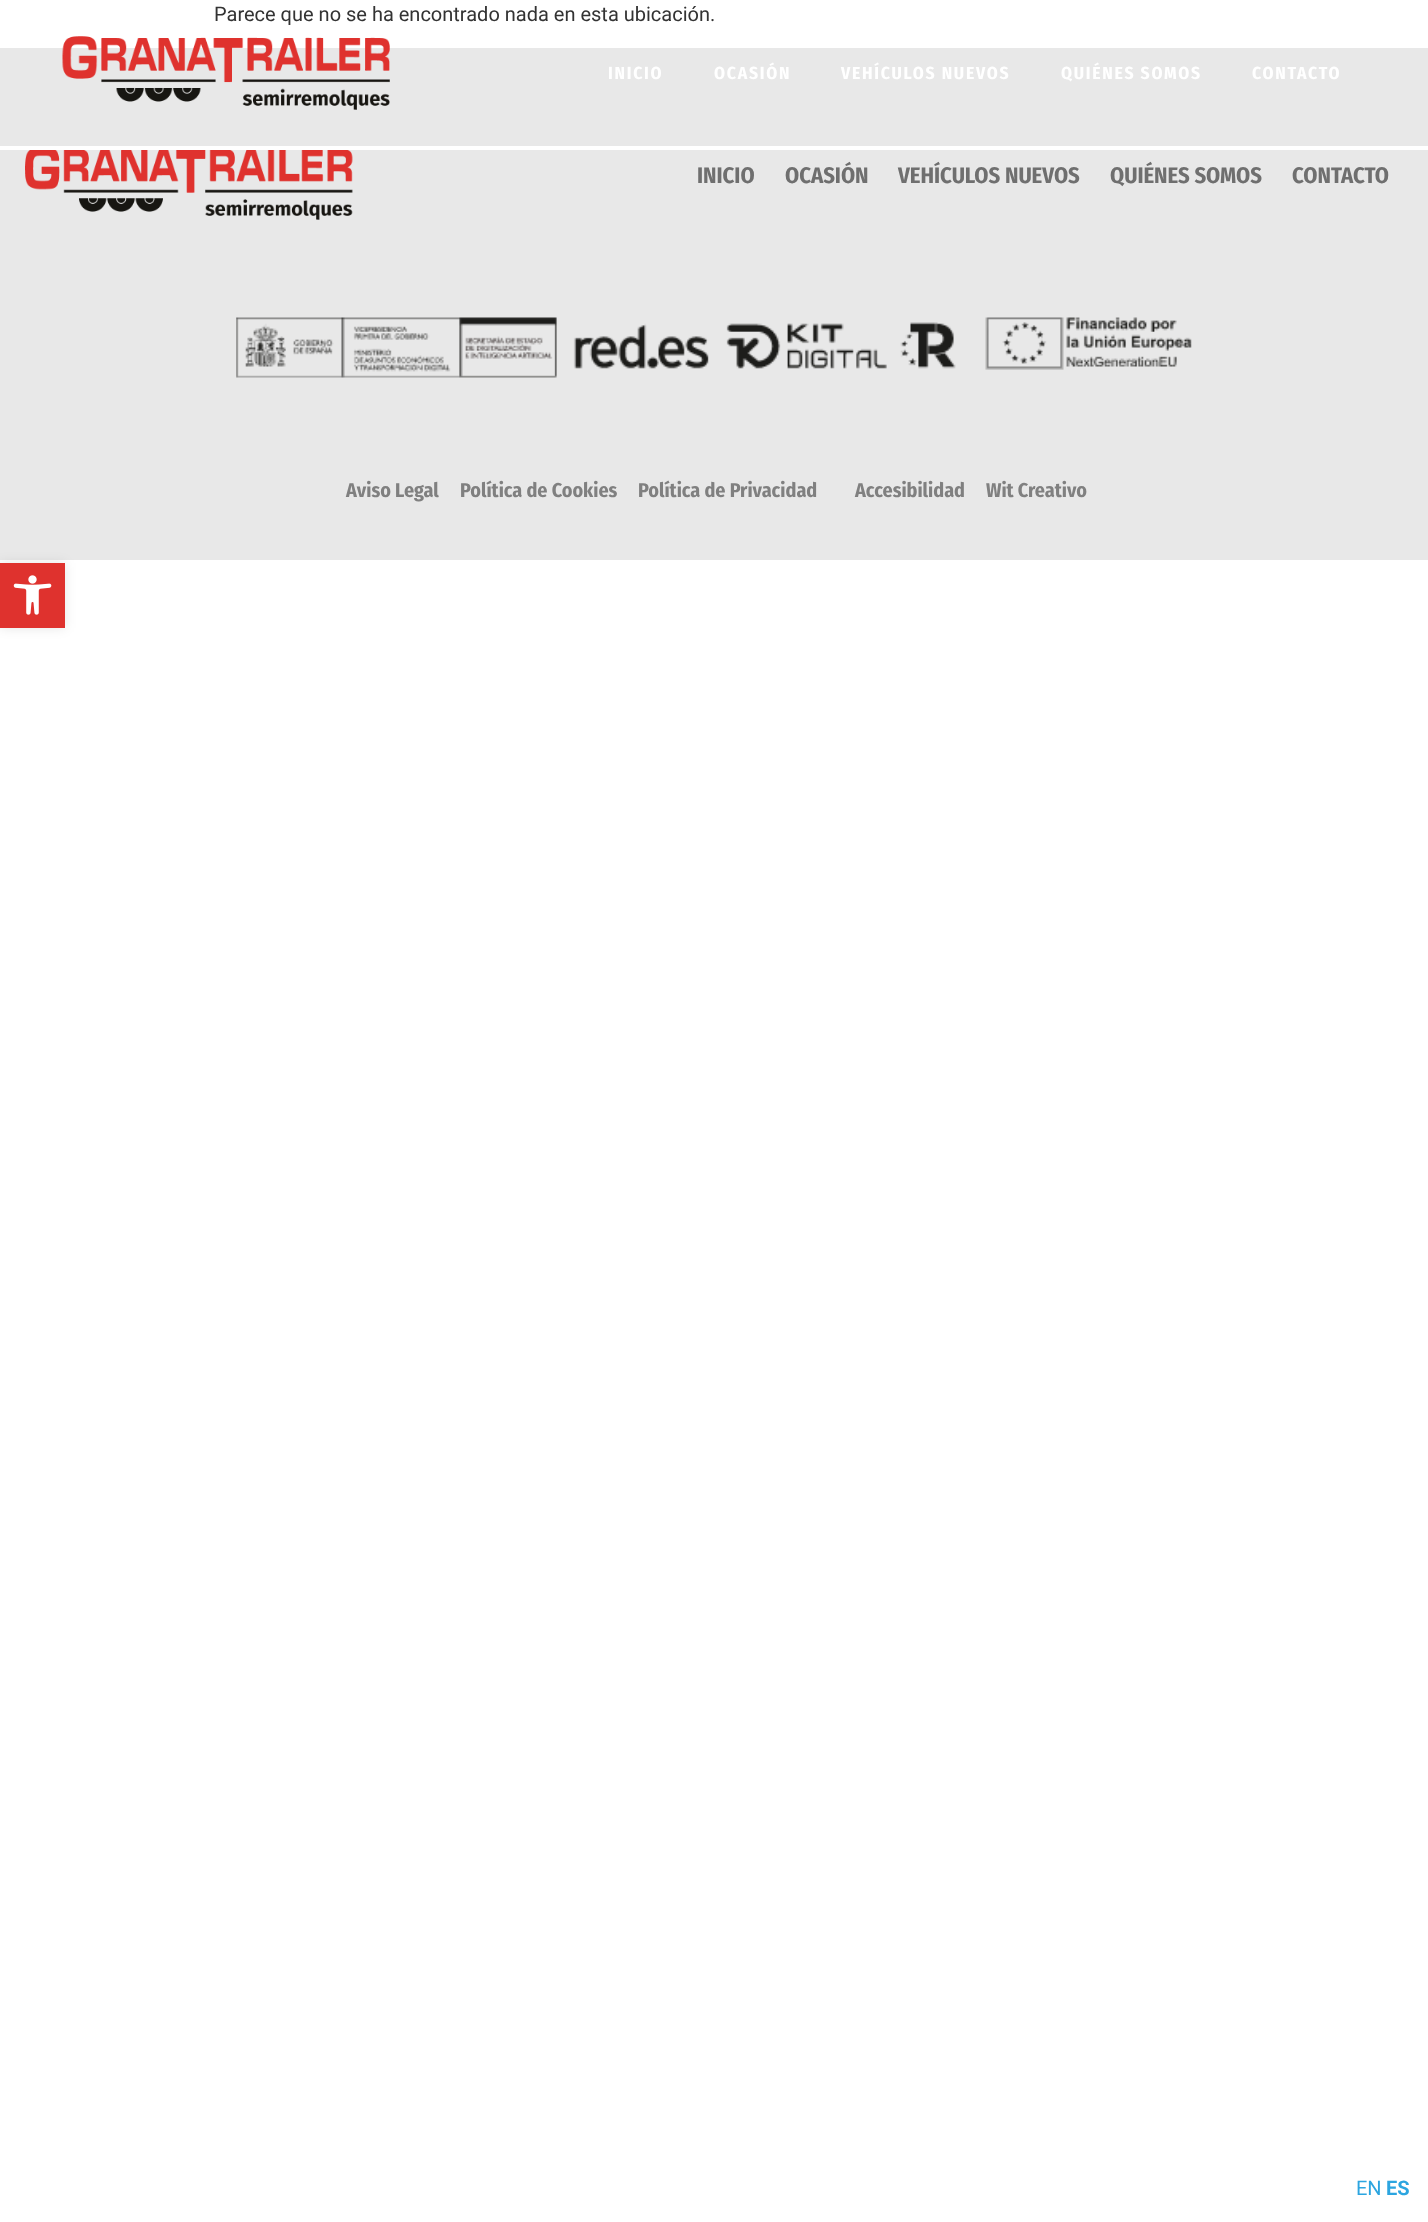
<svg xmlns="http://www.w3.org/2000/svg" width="1428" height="2222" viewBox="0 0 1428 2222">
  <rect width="100%" height="100%" fill="rgb(255,255,255)"/>
  <text x="214" y="21" font-family="Roboto" font-size="20" fill="rgb(51,51,51)">Parece que no se ha encontrado nada en esta ubicación.</text>
  <rect x="0" y="48" width="1428" height="512" fill="rgb(232,232,232)"/>
  <rect x="0" y="146" width="1428" height="4" fill="rgb(255,255,255)"/>
  <image x="62" y="36" width="328" height="74" href="pic1.png"/>
  <g font-family="Fira Sans Condensed" font-size="17.5" font-weight="bold" letter-spacing="1.75" fill="rgb(255,255,255)">
    <text x="608" y="79">INICIO</text>
    <text x="714" y="79">OCASIÓN</text>
    <text x="841" y="79">VEHÍCULOS NUEVOS</text>
    <text x="1061" y="79">QUIÉNES SOMOS</text>
    <text x="1252" y="79">CONTACTO</text>
  </g>
  <image x="25" y="150" width="328" height="70" href="pic2.png"/>
  <g font-family="Fira Sans Condensed" font-size="22.5" font-weight="bold" fill="rgb(111,111,111)">
    <text x="697" y="183">INICIO</text>
    <text x="785" y="183">OCASIÓN</text>
    <text x="898" y="183">VEHÍCULOS NUEVOS</text>
    <text x="1110" y="183">QUIÉNES SOMOS</text>
    <text x="1292" y="183">CONTACTO</text>
  </g>
  <image x="236" y="317" width="956" height="61" href="pic3.png"/>
  <g font-family="Fira Sans Condensed" font-size="20" font-weight="bold" fill="rgb(128,128,128)">
    <text x="346" y="497">Aviso Legal</text>
    <text x="460" y="497">Política de Cookies</text>
    <text x="638" y="497">Política de Privacidad</text>
    <text x="855" y="497">Accesibilidad</text>
    <text x="986" y="497">Wit Creativo</text>
  </g>
  <rect x="0" y="563" width="65" height="65" fill="rgba(0,0,0,0.1)" filter="blur(6px)"/>
  <rect x="0" y="563" width="65" height="65" fill="rgb(223,50,46)"/>
  <image x="13" y="575" width="39" height="40" href="pic4.png"/>
  <text x="1356" y="2195" font-family="Roboto" font-size="20" fill="rgb(44,165,224)">EN</text>
  <text x="1386" y="2195" font-family="Roboto" font-size="20" font-weight="bold" fill="rgb(44,165,224)">ES</text>
</svg>
